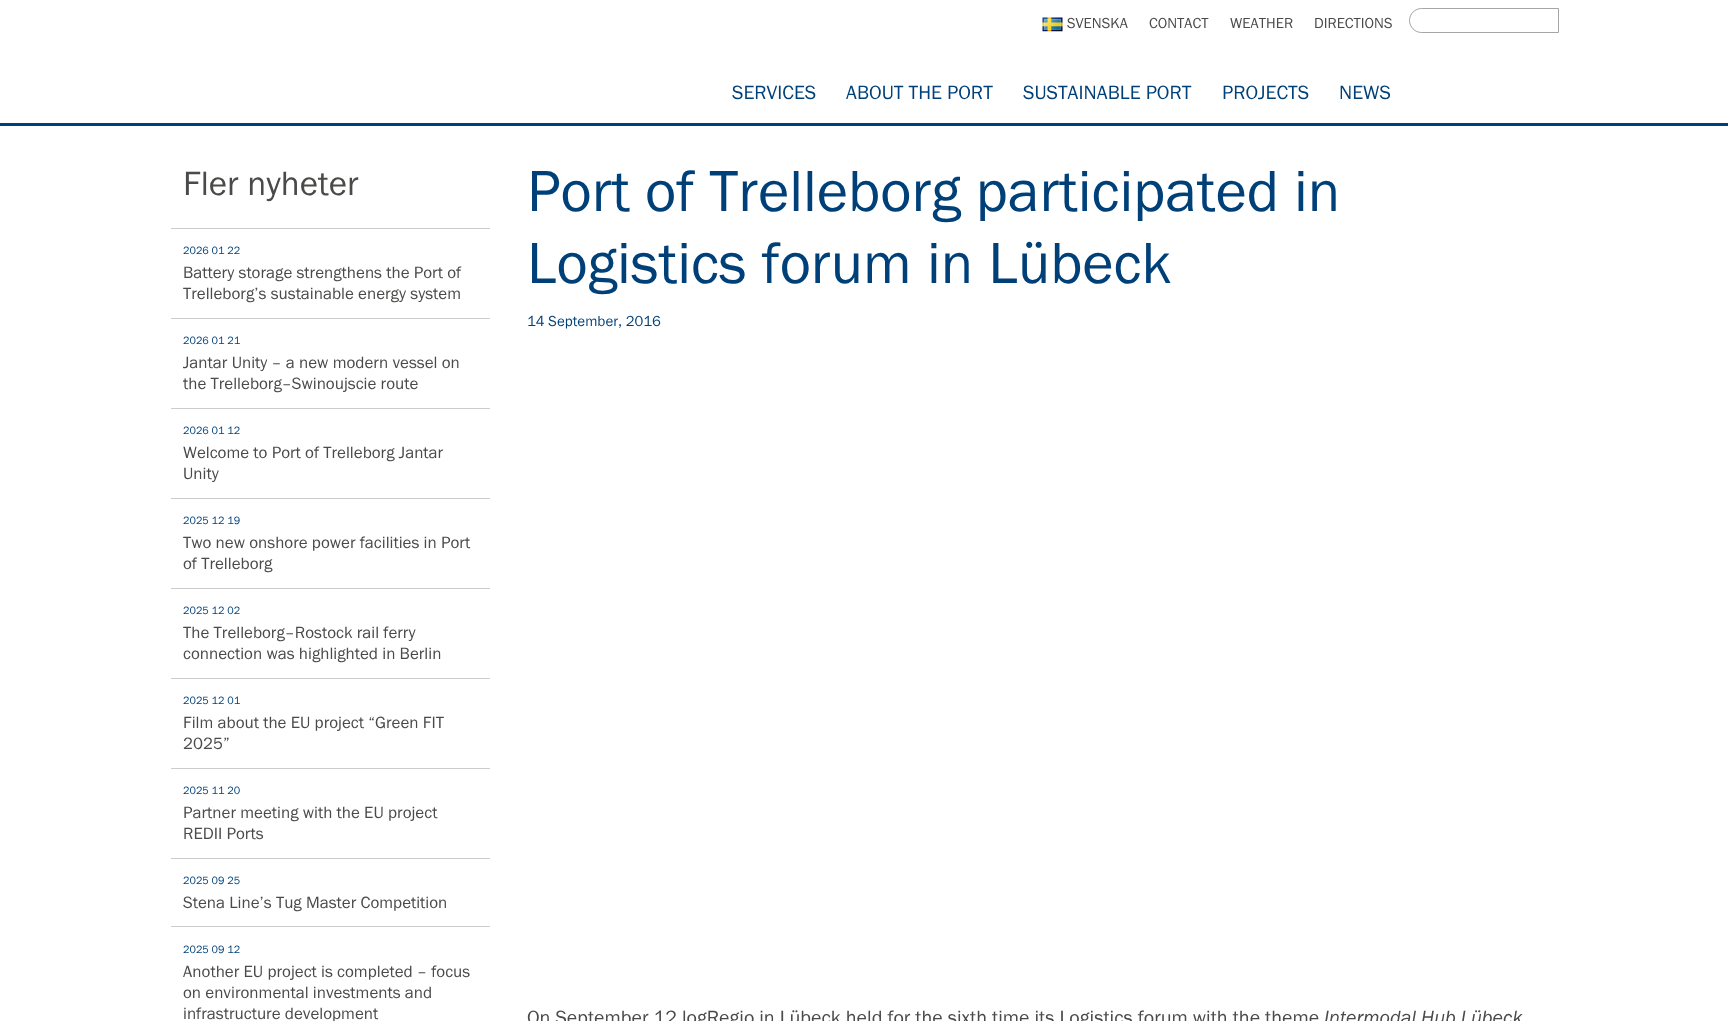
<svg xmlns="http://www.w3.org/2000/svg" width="1728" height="1021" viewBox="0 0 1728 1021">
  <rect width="100%" height="100%" fill="rgb(255,255,255)"/>
  <rect x="0" y="123" width="1728" height="3" fill="rgb(0,64,121)"/>
  <image x="1042" y="17" width="21" height="15" href="pic1.png"/>
  <g font-family="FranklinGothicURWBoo" font-size="15" fill="rgb(74,74,73)">
    <text x="1067" y="28">SVENSKA</text>
    <text x="1149" y="28">CONTACT</text>
    <text x="1230" y="28">WEATHER</text>
    <text x="1314" y="28">DIRECTIONS</text>
  </g>
  <path d="M1421.5 8.5H1558.5V32.5H1421.5C1415 32.5 1409.5 27 1409.5 20.5C1409.5 14 1415 8.5 1421.5 8.5Z" fill="none" stroke="rgb(165,165,164)"/>
  <g font-family="FranklinGothicURWBoo" font-size="20" fill="rgb(0,64,121)">
    <text x="732" y="99">SERVICES</text>
    <text x="846" y="99">ABOUT THE PORT</text>
    <text x="1023" y="99">SUSTAINABLE PORT</text>
    <text x="1222" y="99">PROJECTS</text>
    <text x="1339" y="99">NEWS</text>
  </g>
  <text x="183" y="195" font-family="FranklinGothicURWBoo" font-size="35" fill="rgb(74,74,73)">Fler nyheter</text>
  <rect x="171" y="228" width="319" height="1" fill="rgb(204,204,204)"/>
  <text x="183" y="254" font-family="FranklinGothicURWBoo" font-size="11" fill="rgb(0,64,121)">2026 01 22</text>
  <g font-family="FranklinGothicURWBoo" font-size="17" fill="rgb(74,74,73)">
    <text>
      <tspan x="183" y="278">Battery storage strengthens the Port of</tspan>
      <tspan x="183" y="299">Trelleborg’s sustainable energy system</tspan>
    </text>
  </g>
  <rect x="171" y="318" width="319" height="1" fill="rgb(204,204,204)"/>
  <text x="183" y="344" font-family="FranklinGothicURWBoo" font-size="11" fill="rgb(0,64,121)">2026 01 21</text>
  <g font-family="FranklinGothicURWBoo" font-size="17" fill="rgb(74,74,73)">
    <text>
      <tspan x="183" y="368">Jantar Unity – a new modern vessel on</tspan>
      <tspan x="183" y="389">the Trelleborg–Swinoujscie route</tspan>
    </text>
  </g>
  <rect x="171" y="408" width="319" height="1" fill="rgb(204,204,204)"/>
  <text x="183" y="434" font-family="FranklinGothicURWBoo" font-size="11" fill="rgb(0,64,121)">2026 01 12</text>
  <g font-family="FranklinGothicURWBoo" font-size="17" fill="rgb(74,74,73)">
    <text>
      <tspan x="183" y="458">Welcome to Port of Trelleborg Jantar</tspan>
      <tspan x="183" y="479">Unity</tspan>
    </text>
  </g>
  <rect x="171" y="498" width="319" height="1" fill="rgb(204,204,204)"/>
  <text x="183" y="524" font-family="FranklinGothicURWBoo" font-size="11" fill="rgb(0,64,121)">2025 12 19</text>
  <g font-family="FranklinGothicURWBoo" font-size="17" fill="rgb(74,74,73)">
    <text>
      <tspan x="183" y="548">Two new onshore power facilities in Port</tspan>
      <tspan x="183" y="569">of Trelleborg</tspan>
    </text>
  </g>
  <rect x="171" y="588" width="319" height="1" fill="rgb(204,204,204)"/>
  <text x="183" y="614" font-family="FranklinGothicURWBoo" font-size="11" fill="rgb(0,64,121)">2025 12 02</text>
  <g font-family="FranklinGothicURWBoo" font-size="17" fill="rgb(74,74,73)">
    <text>
      <tspan x="183" y="638">The Trelleborg–Rostock rail ferry</tspan>
      <tspan x="183" y="659">connection was highlighted in Berlin</tspan>
    </text>
  </g>
  <rect x="171" y="678" width="319" height="1" fill="rgb(204,204,204)"/>
  <text x="183" y="704" font-family="FranklinGothicURWBoo" font-size="11" fill="rgb(0,64,121)">2025 12 01</text>
  <g font-family="FranklinGothicURWBoo" font-size="17" fill="rgb(74,74,73)">
    <text>
      <tspan x="183" y="728">Film about the EU project “Green FIT</tspan>
      <tspan x="183" y="749">2025”</tspan>
    </text>
  </g>
  <rect x="171" y="768" width="319" height="1" fill="rgb(204,204,204)"/>
  <text x="183" y="794" font-family="FranklinGothicURWBoo" font-size="11" fill="rgb(0,64,121)">2025 11 20</text>
  <g font-family="FranklinGothicURWBoo" font-size="17" fill="rgb(74,74,73)">
    <text>
      <tspan x="183" y="818">Partner meeting with the EU project</tspan>
      <tspan x="183" y="839">REDII Ports</tspan>
    </text>
  </g>
  <rect x="171" y="858" width="319" height="1" fill="rgb(204,204,204)"/>
  <text x="183" y="884" font-family="FranklinGothicURWBoo" font-size="11" fill="rgb(0,64,121)">2025 09 25</text>
  <text x="183" y="908" font-family="FranklinGothicURWBoo" font-size="17" fill="rgb(74,74,73)">Stena Line’s Tug Master Competition</text>
  <rect x="171" y="926" width="319" height="1" fill="rgb(204,204,204)"/>
  <text x="183" y="953" font-family="FranklinGothicURWBoo" font-size="11" fill="rgb(0,64,121)">2025 09 12</text>
  <g font-family="FranklinGothicURWBoo" font-size="17" fill="rgb(74,74,73)">
    <text>
      <tspan x="183" y="977">Another EU project is completed – focus</tspan>
      <tspan x="183" y="998">on environmental investments and</tspan>
      <tspan x="183" y="1019">infrastructure development</tspan>
    </text>
  </g>
  <g font-family="FranklinGothicURWBoo" font-size="60" fill="rgb(0,64,121)">
    <text>
      <tspan x="527" y="211">Port of Trelleborg participated in</tspan>
      <tspan x="527" y="283">Logistics forum in Lübeck</tspan>
    </text>
  </g>
  <text x="527" y="326" font-family="FranklinGothicURWBoo" font-size="15" fill="rgb(0,64,121)">14 September, 2016</text>
  <text x="527" y="1024" font-family="FranklinGothicURWBoo" font-size="20" fill="rgb(74,74,73)">On September 12 logRegio in Lübeck held for the sixth time its Logistics forum with the theme</text>
  <text x="1324" y="1024" font-family="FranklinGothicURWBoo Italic" font-size="20" font-style="italic" fill="rgb(74,74,73)">Intermodal Hub Lübeck</text>
</svg>
